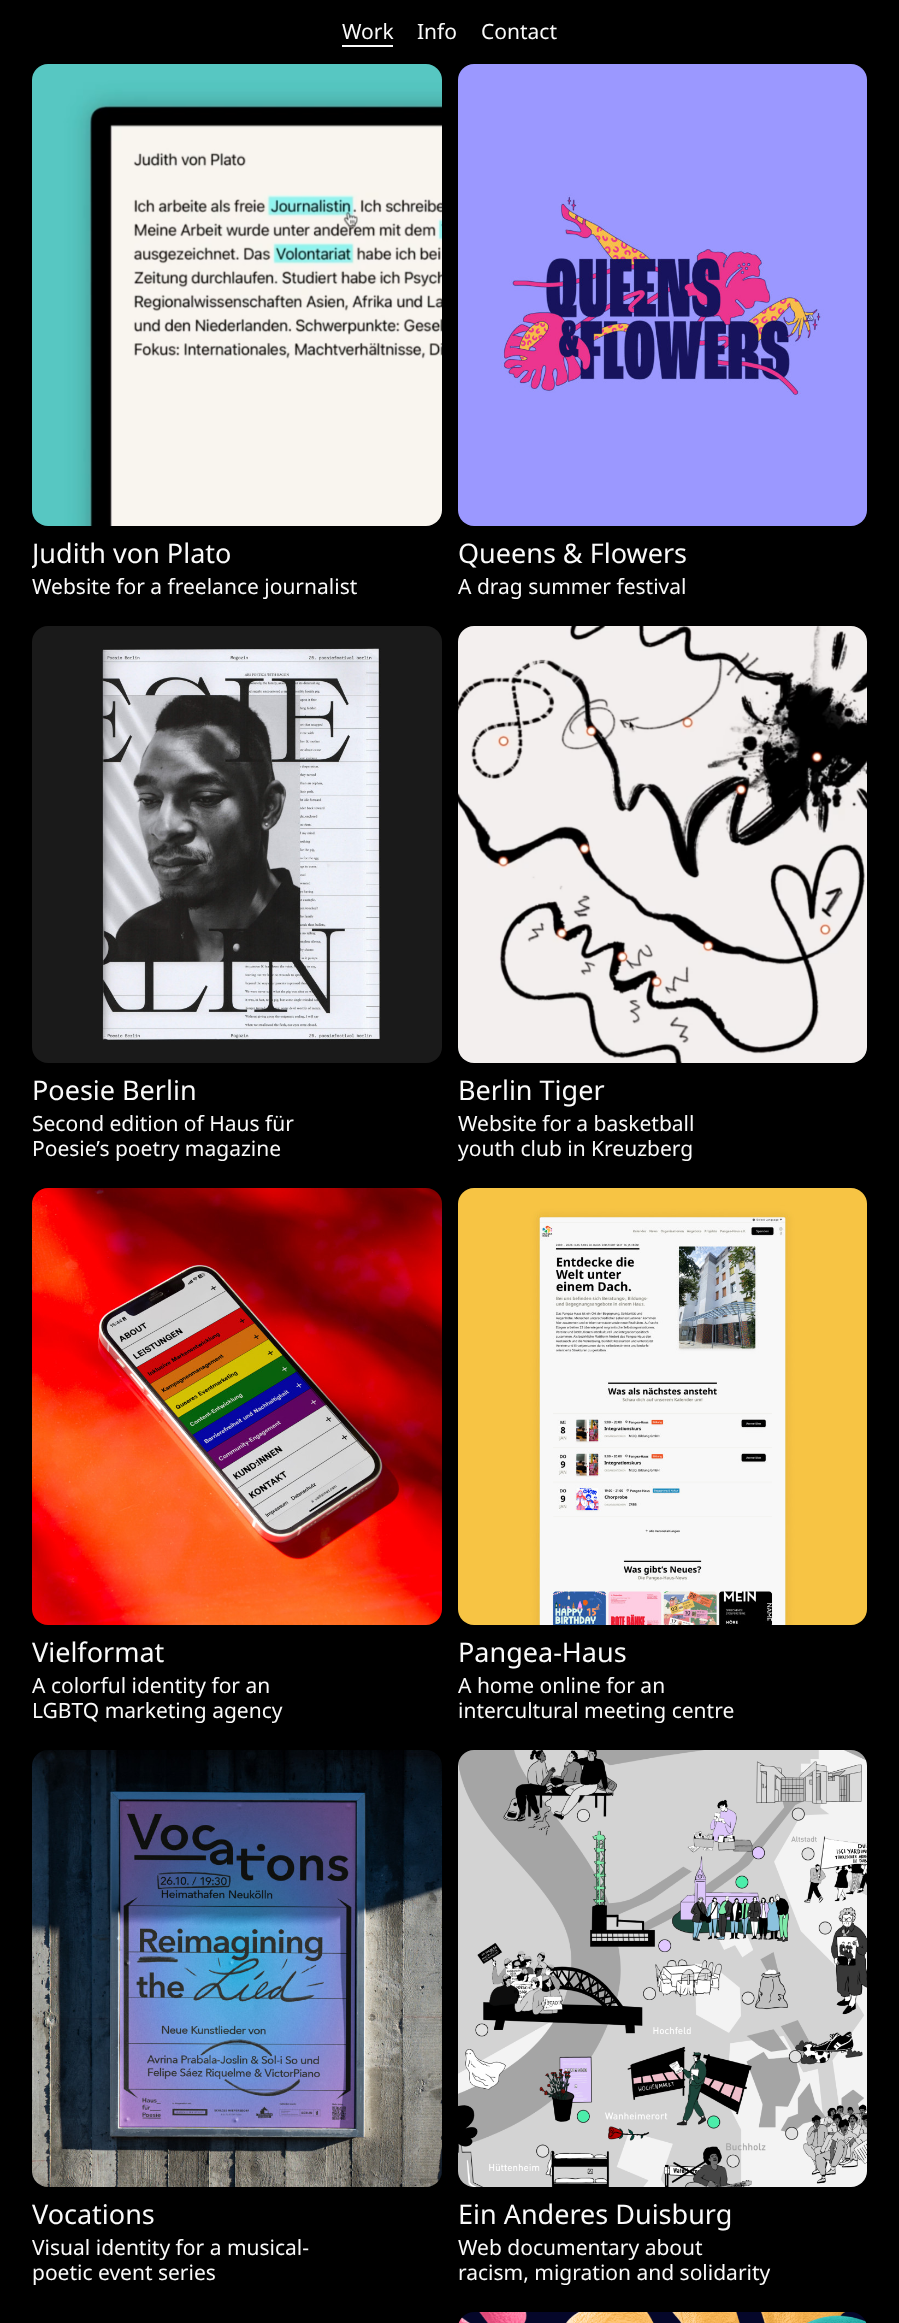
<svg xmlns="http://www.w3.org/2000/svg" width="899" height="2323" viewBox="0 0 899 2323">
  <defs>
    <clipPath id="clip1"><rect x="32" y="526" width="410" height="84"/></clipPath>
    <clipPath id="clip2"><rect x="458" y="1063" width="409" height="109"/></clipPath>
  </defs>
  <rect width="100%" height="100%" fill="rgb(0,0,0)"/>
  <text x="342" y="39" font-family="Noto Sans" font-size="21" fill="rgb(250,250,250)">Work</text>
  <rect x="342" y="45" width="51" height="2" fill="rgb(250,250,250)"/>
  <g font-family="Noto Sans" font-size="21" fill="rgb(250,250,250)">
    <text x="417" y="39">Info</text>
    <text x="481" y="39">Contact</text>
  </g>
  <image x="32" y="64" width="410" height="462" href="pic1.png"/>
  <g clip-path="url(#clip1)">
    <text x="32" y="563" font-family="Noto Sans" font-size="27" fill="rgb(250,250,250)">Judith von Plato</text>
  </g>
  <text x="32" y="594" font-family="Noto Sans" font-size="21" fill="rgb(250,250,250)">Website for a freelance journalist</text>
  <image x="458" y="64" width="409" height="462" href="pic2.png"/>
  <text x="458" y="563" font-family="Noto Sans" font-size="27" fill="rgb(250,250,250)">Queens &amp; Flowers</text>
  <text x="458" y="594" font-family="Noto Sans" font-size="21" fill="rgb(250,250,250)">A drag summer festival</text>
  <image x="32" y="626" width="410" height="437" href="pic3.png"/>
  <text x="32" y="1100" font-family="Noto Sans" font-size="27" fill="rgb(250,250,250)">Poesie Berlin</text>
  <g font-family="Noto Sans" font-size="21" fill="rgb(250,250,250)">
    <text>
      <tspan x="32" y="1131">Second edition of Haus für</tspan>
      <tspan x="32" y="1156">Poesie’s poetry magazine</tspan>
    </text>
  </g>
  <image x="458" y="626" width="409" height="437" href="pic4.png"/>
  <text x="458" y="1100" font-family="Noto Sans" font-size="27" fill="rgb(250,250,250)">Berlin Tiger</text>
  <text x="458" y="1131" font-family="Noto Sans" font-size="21" fill="rgb(250,250,250)">Website for a basketball</text>
  <g clip-path="url(#clip2)">
    <text x="458" y="1156" font-family="Noto Sans" font-size="21" fill="rgb(250,250,250)">youth club in Kreuzberg</text>
  </g>
  <image x="32" y="1188" width="410" height="437" href="pic5.png"/>
  <text x="32" y="1662" font-family="Noto Sans" font-size="27" fill="rgb(250,250,250)">Vielformat</text>
  <g font-family="Noto Sans" font-size="21" fill="rgb(250,250,250)">
    <text>
      <tspan x="32" y="1693">A colorful identity for an</tspan>
      <tspan x="32" y="1718">LGBTQ marketing agency</tspan>
    </text>
  </g>
  <image x="458" y="1188" width="409" height="437" href="pic6.png"/>
  <text x="458" y="1662" font-family="Noto Sans" font-size="27" fill="rgb(250,250,250)">Pangea-Haus</text>
  <g font-family="Noto Sans" font-size="21" fill="rgb(250,250,250)">
    <text>
      <tspan x="458" y="1693">A home online for an</tspan>
      <tspan x="458" y="1718">intercultural meeting centre</tspan>
    </text>
  </g>
  <image x="32" y="1750" width="410" height="437" href="pic7.png"/>
  <text x="32" y="2224" font-family="Noto Sans" font-size="27" fill="rgb(250,250,250)">Vocations</text>
  <g font-family="Noto Sans" font-size="21" fill="rgb(250,250,250)">
    <text>
      <tspan x="32" y="2255">Visual identity for a musical-</tspan>
      <tspan x="32" y="2280">poetic event series</tspan>
    </text>
  </g>
  <image x="458" y="1750" width="409" height="437" href="pic8.png"/>
  <text x="458" y="2224" font-family="Noto Sans" font-size="27" fill="rgb(250,250,250)">Ein Anderes Duisburg</text>
  <g font-family="Noto Sans" font-size="21" fill="rgb(250,250,250)">
    <text>
      <tspan x="458" y="2255">Web documentary about</tspan>
      <tspan x="458" y="2280">racism, migration and solidarity</tspan>
    </text>
  </g>
  <image x="458" y="2312" width="409" height="11" href="pic9.png"/>
</svg>
